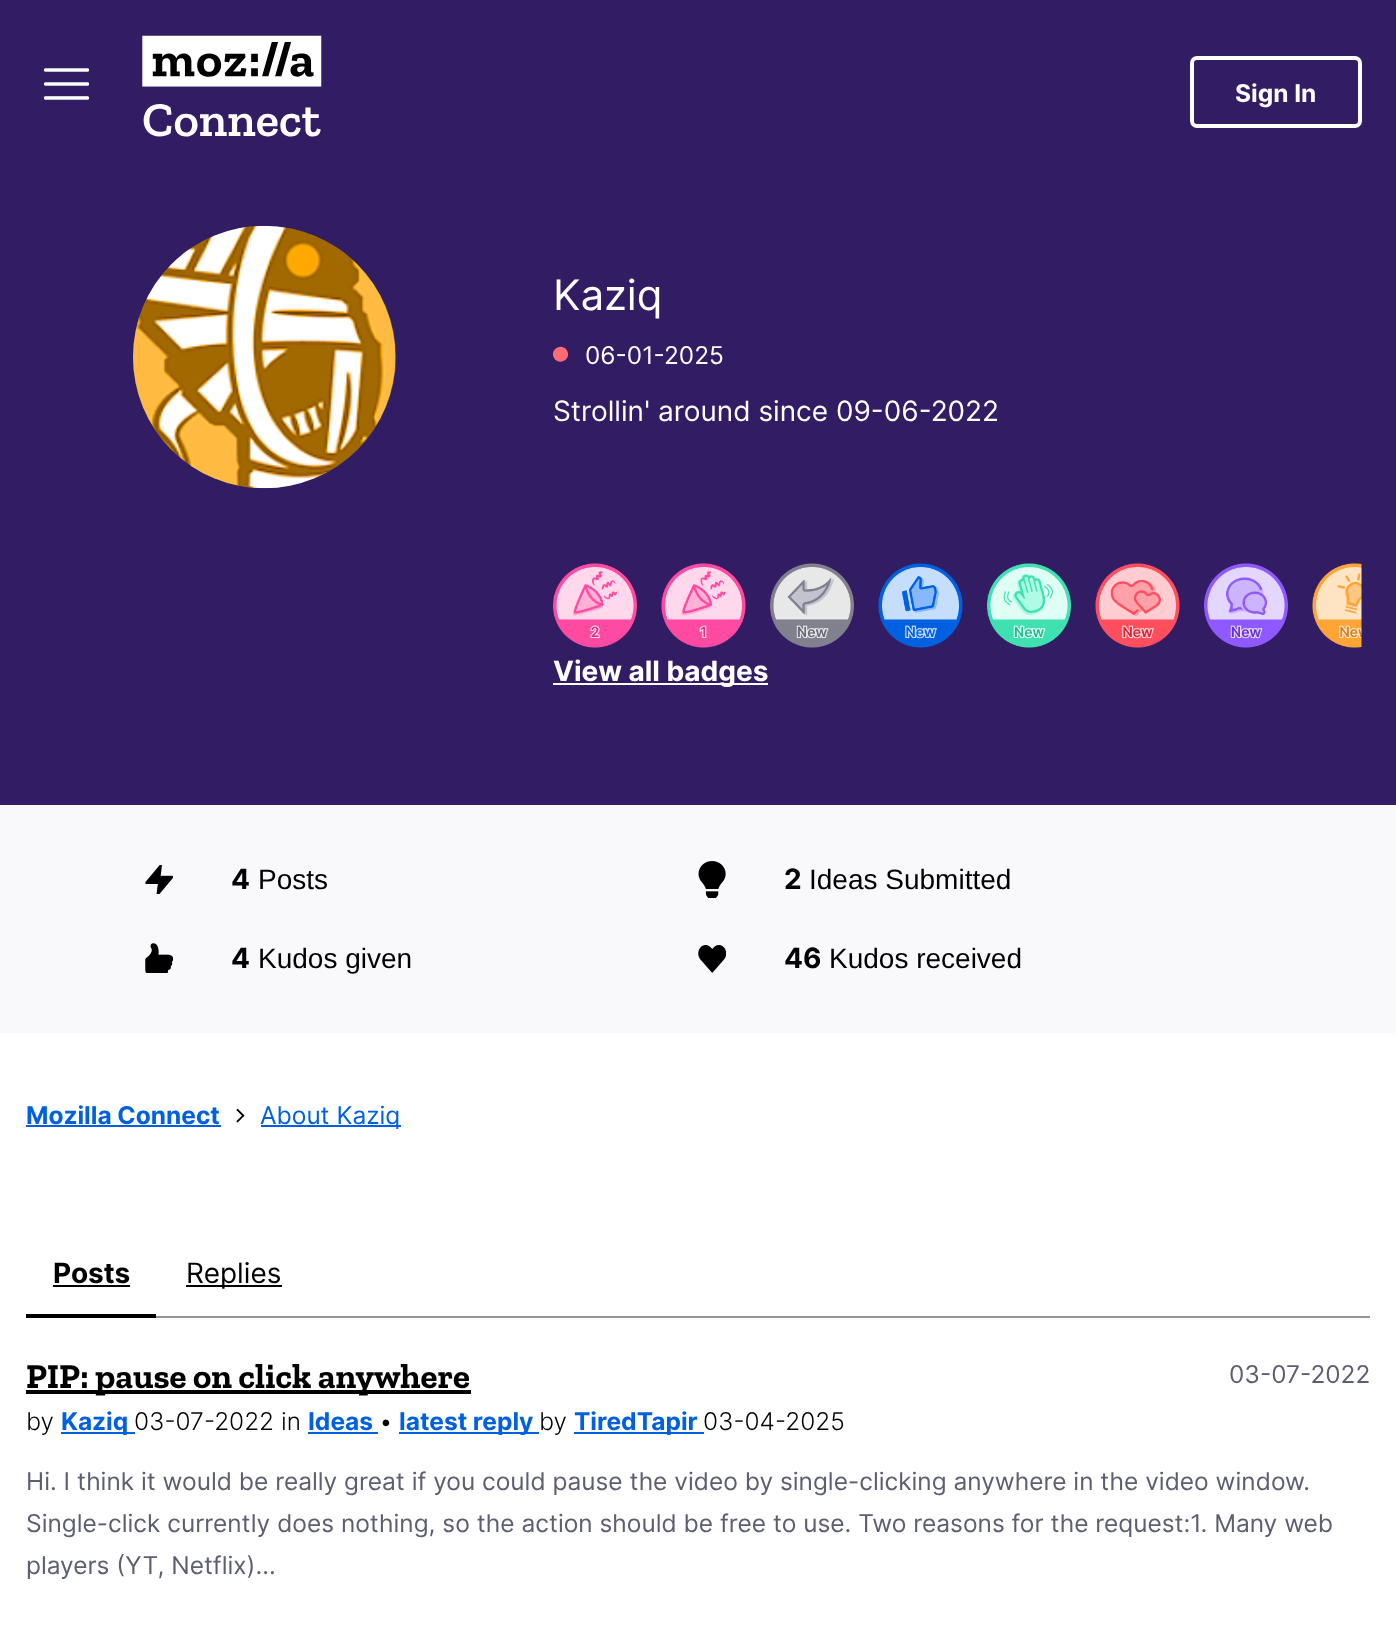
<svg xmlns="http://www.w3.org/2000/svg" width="1396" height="1632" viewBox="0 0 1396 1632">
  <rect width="100%" height="100%" fill="rgb(255,255,255)"/>
  <rect x="0" y="0" width="1396" height="805" fill="rgb(50,28,100)"/>
  <image x="44" y="68" width="45" height="32" href="pic1.png"/>
  <image x="142" y="35" width="180" height="102" href="pic2.png"/>
  <rect x="1192" y="58" width="168" height="68" rx="5" fill="none" stroke="rgb(255,255,255)" stroke-width="4"/>
  <text x="1235" y="102" font-family="Inter" font-size="24.5" font-weight="bold" fill="rgb(255,255,255)">Sign In</text>
  <rect x="133" y="226" width="263" height="262" rx="131" fill="rgb(93,93,93)"/>
  <image x="133" y="225" width="263" height="264" href="pic3.png"/>
  <text x="553" y="310" font-family="Inter" font-size="42" fill="rgb(255,255,255)">Kaziq</text>
  <path d="M567 350.5C572 359 559 366.5 554 358C549 349.5 562 342 567 350.5Z" fill="rgb(255,106,117)"/>
  <text x="585" y="364" font-family="Inter" font-size="24.5" fill="rgb(255,255,255)">06-01-2025</text>
  <text x="553" y="421" font-family="Inter" font-size="28" fill="rgb(255,255,255)">Strollin' around since 09-06-2022</text>
  <image x="553" y="563" width="84" height="85" href="pic4.png"/>
  <image x="661" y="563" width="85" height="85" href="pic5.png"/>
  <image x="770" y="563" width="84" height="85" href="pic6.png"/>
  <image x="878" y="563" width="85" height="85" href="pic7.png"/>
  <image x="987" y="563" width="84" height="85" href="pic8.png"/>
  <image x="1095" y="563" width="85" height="85" href="pic9.png"/>
  <image x="1204" y="563" width="84" height="85" href="pic10.png"/>
  <image x="1312" y="563" width="50" height="85" href="pic11.png"/>
  <rect x="553" y="683" width="215" height="2" fill="rgb(255,255,255)"/>
  <text x="553" y="681" font-family="Inter" font-size="28" font-weight="bold" fill="rgb(255,255,255)">View all badges</text>
  <rect x="0" y="805" width="1396" height="228" fill="rgb(249,249,251)"/>
  <image x="145" y="865" width="28" height="29" href="pic12.png"/>
  <text x="231" y="889" font-family="Inter" font-size="28" font-weight="bold" fill="rgb(0,0,0)">4</text>
  <text x="258" y="889" font-family="Liberation Sans" font-size="28" fill="rgb(0,0,0)">Posts</text>
  <image x="698" y="861" width="28" height="37" href="pic13.png"/>
  <text x="784" y="889" font-family="Inter" font-size="28" font-weight="bold" fill="rgb(0,0,0)">2</text>
  <text x="809" y="889" font-family="Liberation Sans" font-size="28" fill="rgb(0,0,0)">Ideas Submitted</text>
  <image x="145" y="943" width="28" height="30" href="pic14.png"/>
  <text x="231" y="968" font-family="Inter" font-size="28" font-weight="bold" fill="rgb(0,0,0)">4</text>
  <text x="258" y="968" font-family="Liberation Sans" font-size="28" fill="rgb(0,0,0)">Kudos given</text>
  <image x="698" y="945" width="28" height="28" href="pic15.png"/>
  <text x="784" y="968" font-family="Inter" font-size="28" font-weight="bold" fill="rgb(0,0,0)">46</text>
  <text x="829" y="968" font-family="Liberation Sans" font-size="28" fill="rgb(0,0,0)">Kudos received</text>
  <text x="26" y="1124" font-family="Inter" font-size="24.5" font-weight="bold" fill="rgb(0,96,223)">Mozilla Connect</text>
  <rect x="26" y="1125" width="195" height="2" fill="rgb(0,96,223)"/>
  <image x="236" y="1108" width="9" height="15" href="pic16.png"/>
  <rect x="261" y="1125" width="140" height="2" fill="rgb(0,96,223)"/>
  <text x="260" y="1124" font-family="Inter" font-size="24.5" fill="rgb(0,96,223)">About Kaziq</text>
  <rect x="156" y="1316" width="1214" height="2" fill="rgb(149,149,162)"/>
  <rect x="26" y="1314" width="130" height="4" fill="rgb(0,0,0)"/>
  <text x="53" y="1283" font-family="Inter" font-size="28" font-weight="bold" fill="rgb(0,0,0)">Posts</text>
  <rect x="53" y="1285" width="77" height="2" fill="rgb(0,0,0)"/>
  <rect x="186" y="1285" width="96" height="2" fill="rgb(0,0,0)"/>
  <text x="186" y="1283" font-family="Inter" font-size="28" fill="rgb(0,0,0)">Replies</text>
  <rect x="26" y="1390" width="445" height="4" fill="rgb(0,0,0)"/>
  <text x="26" y="1388" font-family="Zilla Slab" font-size="35" font-weight="bold" fill="rgb(0,0,0)">PIP: pause on click anywhere</text>
  <text x="26" y="1430" font-family="Inter" font-size="24.5" font-weight="300" fill="rgb(0,0,0)">by</text>
  <rect x="61" y="1432" width="74" height="2" fill="rgb(0,96,223)"/>
  <text x="61" y="1430" font-family="Inter" font-size="24.5" font-weight="bold" fill="rgb(0,96,223)">Kaziq</text>
  <text x="134" y="1430" font-family="Inter" font-size="24.5" font-weight="300" fill="rgb(0,0,0)">03-07-2022 in</text>
  <text x="308" y="1430" font-family="Inter" font-size="24.5" font-weight="bold" fill="rgb(0,96,223)">Ideas</text>
  <rect x="308" y="1432" width="70" height="2" fill="rgb(0,96,223)"/>
  <text x="379" y="1430" font-family="Inter" font-size="24.5" font-weight="300" fill="rgb(0,0,0)">•</text>
  <rect x="399" y="1432" width="140" height="2" fill="rgb(0,96,223)"/>
  <text x="399" y="1430" font-family="Inter" font-size="24.5" font-weight="bold" fill="rgb(0,96,223)">latest reply</text>
  <text x="539" y="1430" font-family="Inter" font-size="24.5" font-weight="300" fill="rgb(0,0,0)">by</text>
  <rect x="574" y="1432" width="130" height="2" fill="rgb(0,96,223)"/>
  <text x="574" y="1430" font-family="Inter" font-size="24.5" font-weight="bold" fill="rgb(0,96,223)">TiredTapir</text>
  <text x="703" y="1430" font-family="Inter" font-size="24.5" font-weight="300" fill="rgb(0,0,0)">03-04-2025</text>
  <g font-family="Inter" font-size="24.5" fill="rgb(94,94,114)">
    <text x="1229" y="1383">03-07-2022</text>
    <text>
      <tspan x="26" y="1490">Hi. I think it would be really great if you could pause the video by single-clicking anywhere in the video window.</tspan>
      <tspan x="26" y="1532">Single-click currently does nothing, so the action should be free to use. Two reasons for the request:1. Many web</tspan>
      <tspan x="26" y="1574">players (YT, Netflix)...</tspan>
    </text>
  </g>
</svg>
